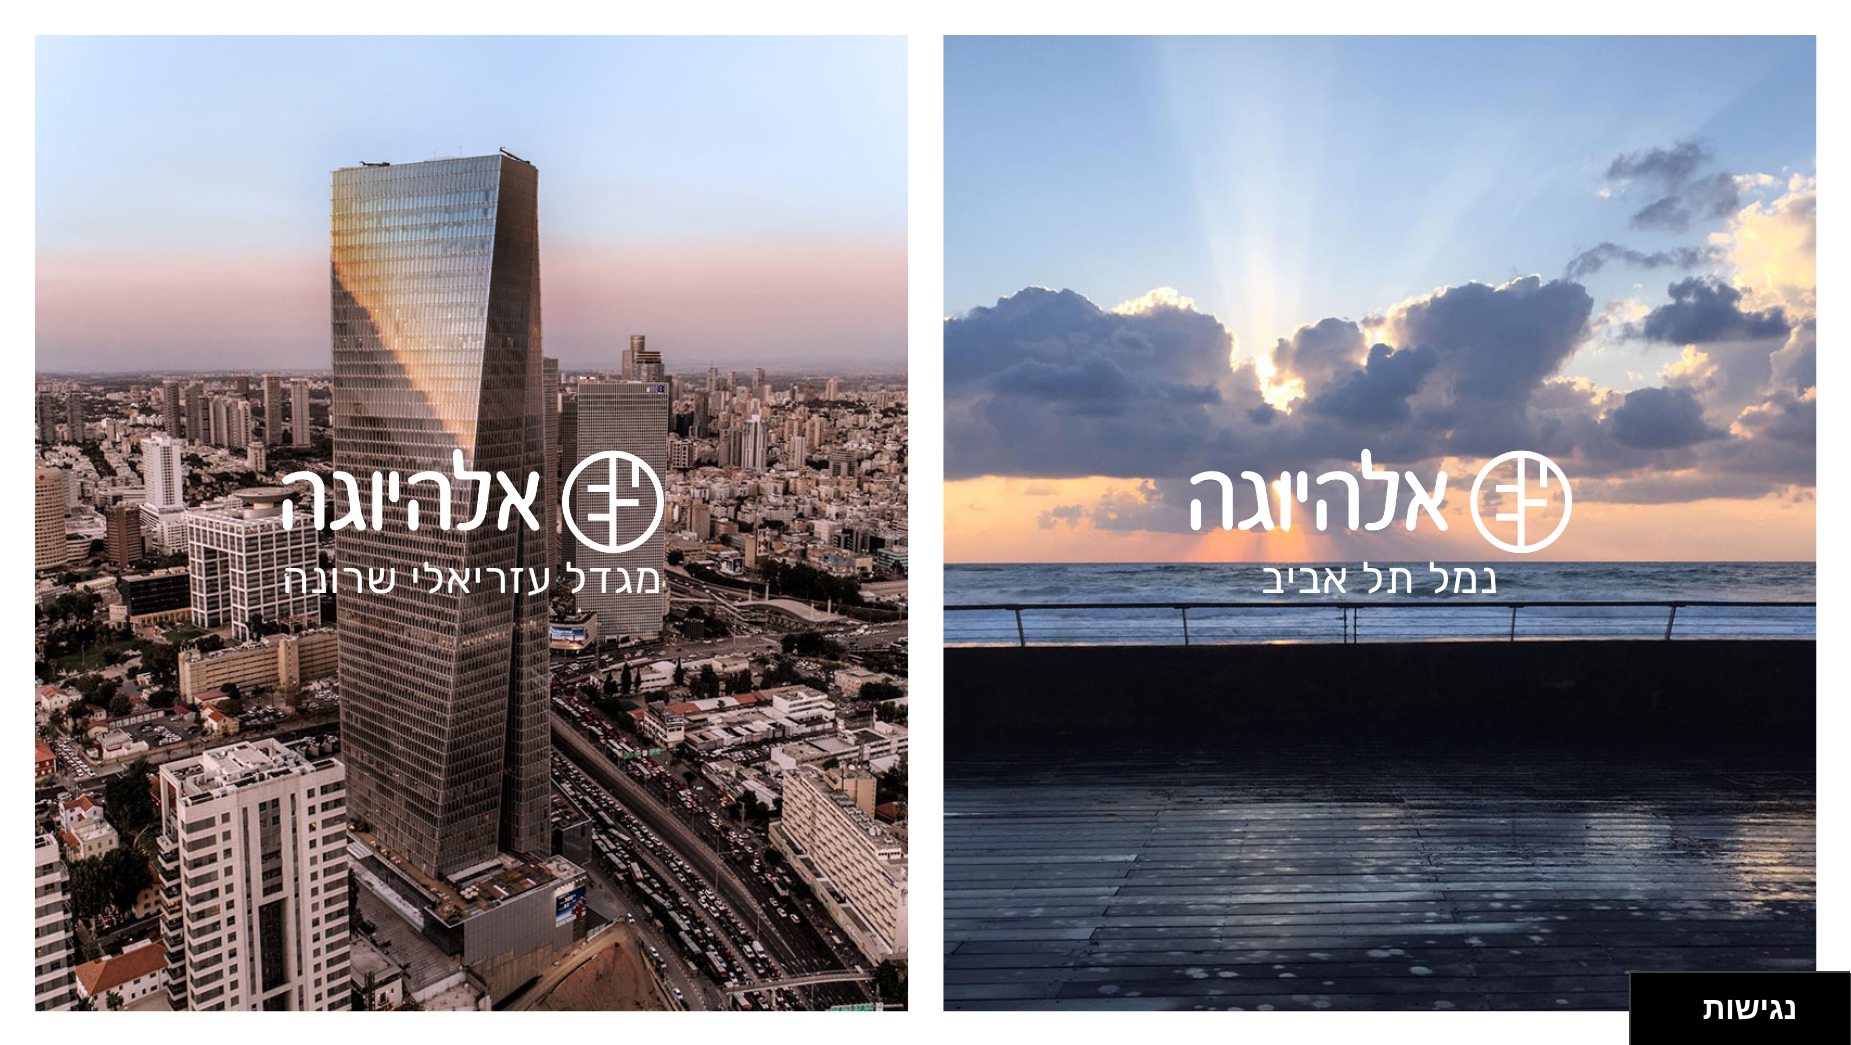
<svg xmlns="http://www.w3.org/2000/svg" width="1851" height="1045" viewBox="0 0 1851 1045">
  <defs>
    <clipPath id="clip1"><rect x="1631" y="973" width="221" height="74"/></clipPath>
  </defs>
  <rect width="100%" height="100%" fill="rgb(255,255,255)"/>
  <image x="943" y="35" width="874" height="977" href="pic1.png"/>
  <image x="1190" y="448" width="382" height="105" href="pic2.png"/>
  <text x="1499" y="593" word-spacing="1" font-family="Rubik" font-size="44" font-weight="300" letter-spacing="1.1" direction="rtl" fill="rgb(255,255,255)">נמל תל אביב</text>
  <image x="35" y="35" width="874" height="977" href="pic3.png"/>
  <image x="282" y="448" width="382" height="105" href="pic4.png"/>
  <text x="663" y="593" font-family="Rubik" font-size="44" font-weight="300" letter-spacing="1.1" direction="rtl" fill="rgb(255,255,255)">מגדל עזריאלי שרונה</text>
  <path d="M1629 971V1045H1631V973H1850V971Z" fill="rgb(64,64,64)"/>
  <rect x="1631" y="973" width="219" height="72" fill="rgb(0,0,0)"/>
  <g clip-path="url(#clip1)">
    <path d="M1458 800H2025V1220H1458ZM1629 971H1850V1045H1629Z" fill="rgb(64,64,64)" fill-rule="evenodd"/>
  </g>
  <text x="1797" y="1019" font-family="Liberation Sans" font-size="31.5" font-weight="bold" letter-spacing="-0.25" direction="rtl" fill="rgb(255,255,255)">נגישות</text>
</svg>
